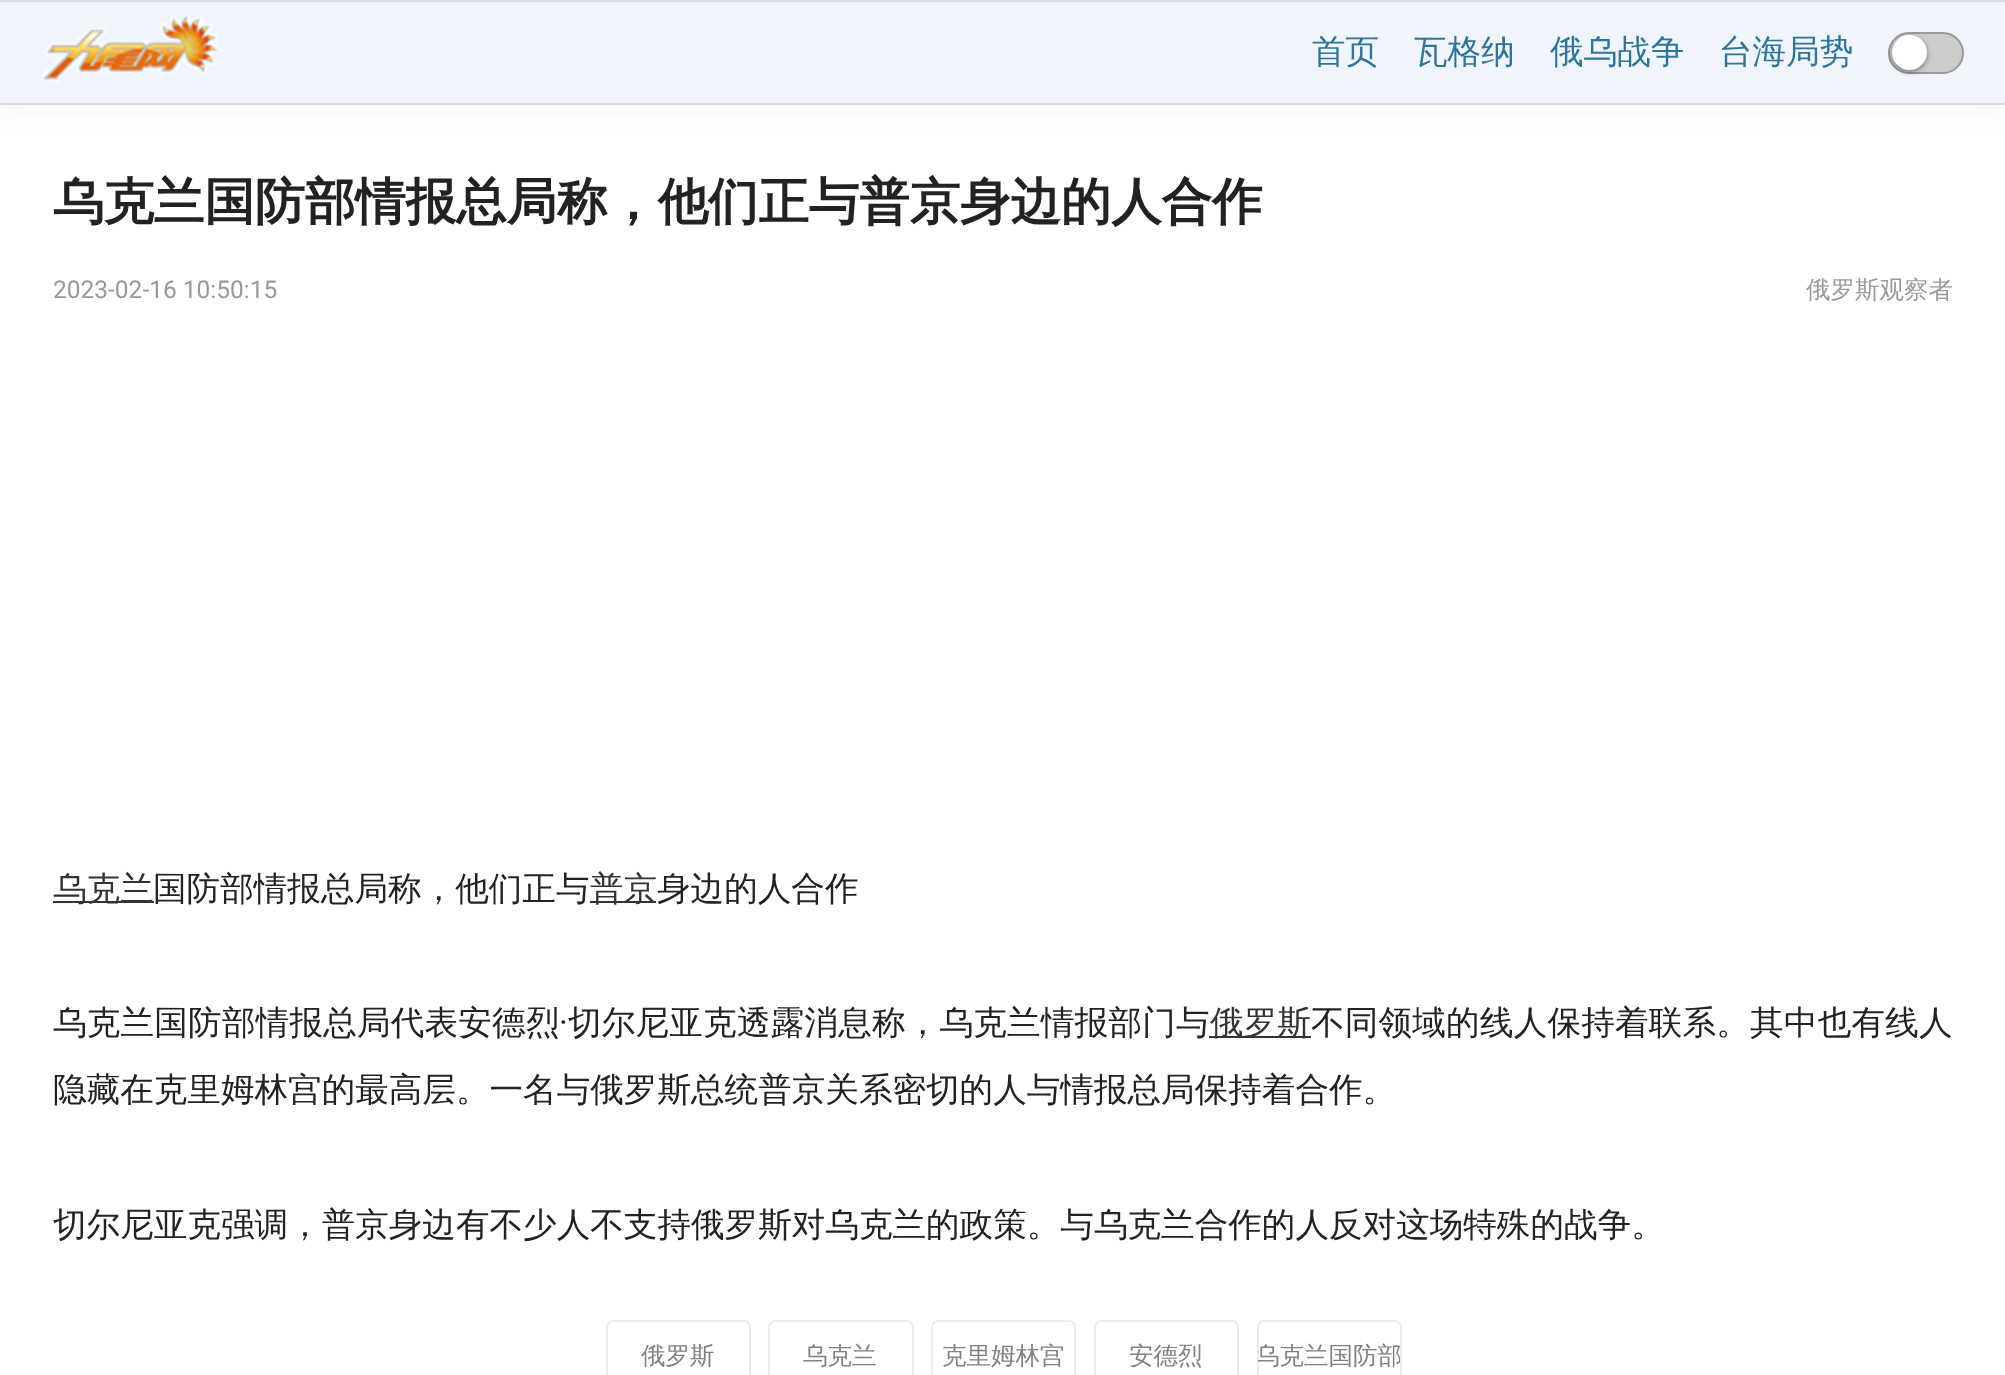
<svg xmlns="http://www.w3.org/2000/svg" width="2005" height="1375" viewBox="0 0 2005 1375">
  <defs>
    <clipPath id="clip1"><rect x="1258" y="1321" width="142" height="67" rx="5"/></clipPath>
  </defs>
  <rect width="100%" height="100%" fill="rgb(255,255,255)"/>
  <rect x="0" y="4" width="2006" height="105" fill="rgba(54,56,79,0.06)" filter="blur(14px)"/>
  <rect x="0" y="2" width="2005" height="101" fill="rgb(240,245,253)"/>
  <rect x="0" y="0" width="2005" height="2" fill="rgb(213,221,226)"/>
  <rect x="0" y="103" width="2005" height="2" fill="rgb(213,221,226)"/>
  <image x="42" y="15" width="175" height="67" href="pic1.png"/>
  <g font-family="WenQuanYi Zen Hei" font-size="33.6" font-weight="500" fill="rgb(47,117,151)">
    <text x="1312" y="63">首页</text>
    <text x="1414" y="63">瓦格纳</text>
    <text x="1550" y="63">俄乌战争</text>
    <text x="1719" y="63">台海局势</text>
  </g>
  <rect x="1889" y="33" width="74" height="40" rx="20" fill="rgb(204,204,204)" stroke="rgb(153,153,153)" stroke-width="2"/>
  <rect x="1892" y="37" width="35" height="35" rx="17.5" fill="rgba(0,0,0,0.4)" filter="blur(2.5px)"/>
  <circle cx="1909.5" cy="52.5" r="17.5" fill="rgb(255,255,255)"/>
  <text x="53" y="219" font-family="WenQuanYi Zen Hei" font-size="50.4" font-weight="bold" fill="rgb(34,34,34)">乌克兰国防部情报总局称，他们正与普京身边的人合作</text>
  <text x="53" y="298" font-family="Roboto" font-size="24.5" fill="rgb(153,153,153)">2023-02-16 10:50:15</text>
  <text x="1806" y="298" font-family="WenQuanYi Zen Hei" font-size="24.5" font-weight="500" fill="rgb(153,153,153)">俄罗斯观察者</text>
  <rect x="53" y="901" width="101" height="2" fill="rgb(51,51,51)"/>
  <text x="53" y="900" font-family="WenQuanYi Zen Hei" font-size="33.6" font-weight="500" fill="rgb(51,51,51)">乌克兰</text>
  <text x="153" y="900" font-family="WenQuanYi Zen Hei" font-size="33.6" font-weight="500" fill="rgb(34,34,34)">国防部情报总局称，他们正与</text>
  <rect x="590" y="901" width="66" height="2" fill="rgb(51,51,51)"/>
  <text x="590" y="900" font-family="WenQuanYi Zen Hei" font-size="33.6" font-weight="500" fill="rgb(51,51,51)">普京</text>
  <text x="657" y="900" font-family="WenQuanYi Zen Hei" font-size="33.6" font-weight="500" fill="rgb(34,34,34)">身边的人合作</text>
  <text x="53" y="1034" font-family="WenQuanYi Zen Hei" font-size="33.6" font-weight="500" letter-spacing="0.2" fill="rgb(34,34,34)">乌克兰国防部情报总局代表安德烈</text>
  <text x="559" y="1034" font-family="Roboto" font-size="33.6" letter-spacing="0.2" fill="rgb(34,34,34)">·</text>
  <text x="568" y="1034" font-family="WenQuanYi Zen Hei" font-size="33.6" font-weight="500" letter-spacing="0.2" fill="rgb(34,34,34)">切尔尼亚克透露消息称，乌克兰情报部门与</text>
  <rect x="1209" y="1036" width="102" height="2" fill="rgb(51,51,51)"/>
  <text x="1210" y="1034" font-family="WenQuanYi Zen Hei" font-size="33.6" font-weight="500" fill="rgb(51,51,51)">俄罗斯</text>
  <text x="1311" y="1034" font-family="WenQuanYi Zen Hei" font-size="33.6" font-weight="500" letter-spacing="0.2" fill="rgb(34,34,34)">不同领域的线人保持着联系。其中也有线人</text>
  <g font-family="WenQuanYi Zen Hei" font-size="33.6" font-weight="500" fill="rgb(34,34,34)">
    <text x="53" y="1101">隐藏在克里姆林宫的最高层。一名与俄罗斯总统普京关系密切的人与情报总局保持着合作。</text>
    <text x="53" y="1236">切尔尼亚克强调，普京身边有不少人不支持俄罗斯对乌克兰的政策。与乌克兰合作的人反对这场特殊的战争。</text>
  </g>
  <rect x="607" y="1321" width="143" height="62" rx="6" fill="none" stroke="rgb(236,236,236)" stroke-width="2"/>
  <text x="641" y="1364" font-family="WenQuanYi Zen Hei" font-size="24.5" font-weight="500" fill="rgb(129,129,129)">俄罗斯</text>
  <rect x="769" y="1321" width="144" height="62" rx="6" fill="none" stroke="rgb(236,236,236)" stroke-width="2"/>
  <text x="803" y="1364" font-family="WenQuanYi Zen Hei" font-size="24.5" font-weight="500" fill="rgb(129,129,129)">乌克兰</text>
  <rect x="932" y="1321" width="143" height="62" rx="6" fill="none" stroke="rgb(236,236,236)" stroke-width="2"/>
  <text x="942" y="1364" font-family="WenQuanYi Zen Hei" font-size="24.5" font-weight="500" fill="rgb(129,129,129)">克里姆林宫</text>
  <rect x="1095" y="1321" width="143" height="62" rx="6" fill="none" stroke="rgb(236,236,236)" stroke-width="2"/>
  <text x="1129" y="1364" font-family="WenQuanYi Zen Hei" font-size="24.5" font-weight="500" fill="rgb(129,129,129)">安德烈</text>
  <rect x="1258" y="1321" width="143" height="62" rx="6" fill="none" stroke="rgb(236,236,236)" stroke-width="2"/>
  <g clip-path="url(#clip1)">
    <text x="1255" y="1364" font-family="WenQuanYi Zen Hei" font-size="24.5" font-weight="500" fill="rgb(129,129,129)">乌克兰国防部</text>
  </g>
</svg>
